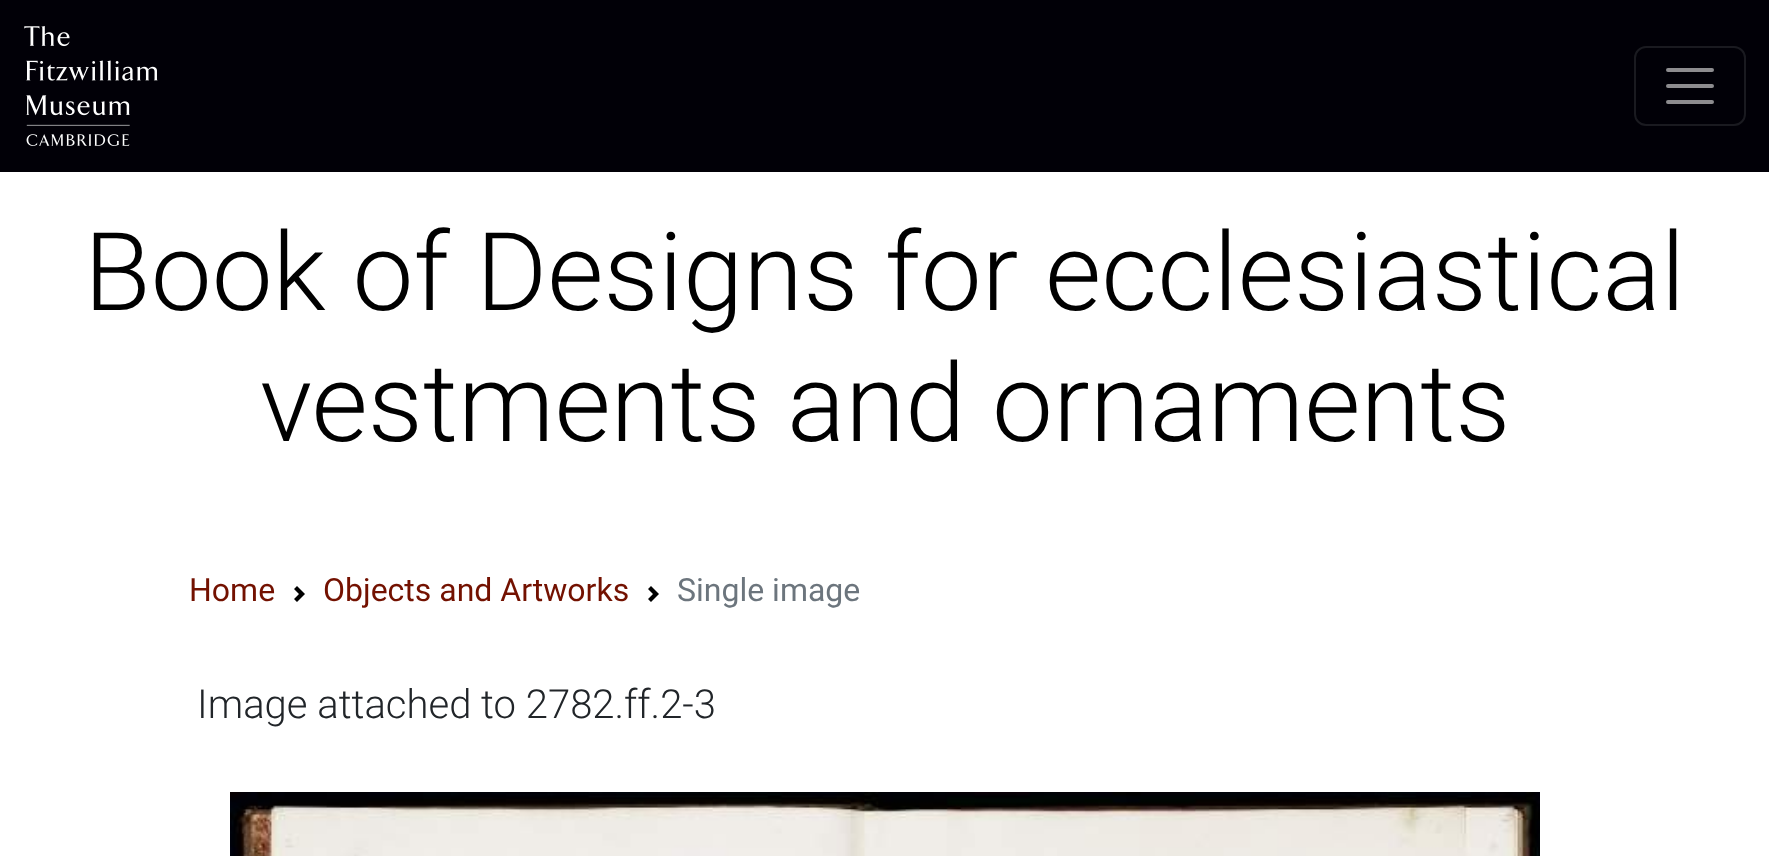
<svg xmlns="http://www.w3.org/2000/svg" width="1769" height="856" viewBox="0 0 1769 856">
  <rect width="100%" height="100%" fill="rgb(255,255,255)"/>
  <rect x="0" y="0" width="1769" height="172" fill="rgb(1,0,7)"/>
  <image x="24" y="26" width="134" height="120" href="pic1.png"/>
  <rect x="1635" y="47" width="110" height="78" rx="11" fill="none" stroke="rgb(26,26,32)" stroke-width="2"/>
  <path d="M1668 70H1712M1668 86H1712M1668 102H1712" fill="none" stroke="rgb(141,140,143)" stroke-width="4" stroke-linecap="round"/>
  <g font-family="Roboto" font-size="108.75" font-weight="300" fill="rgb(0,0,0)">
    <text x="84" y="310">Book of Designs for ecclesiastical</text>
    <text x="260" y="441">vestments and ornaments</text>
  </g>
  <text x="189" y="601" font-family="Roboto" font-size="32" fill="rgb(115,17,0)">Home</text>
  <image x="294" y="586" width="11" height="16" href="pic2.png"/>
  <text x="323" y="601" font-family="Roboto" font-size="32" fill="rgb(115,17,0)">Objects and Artworks</text>
  <image x="648" y="586" width="11" height="16" href="pic2.png"/>
  <text x="677" y="601" font-family="Roboto" font-size="32" fill="rgb(108,117,125)">Single image</text>
  <text x="197" y="718" font-family="Roboto" font-size="40" font-weight="300" fill="rgb(33,37,41)">Image attached to 2782.ff.2-3</text>
  <image x="230" y="792" width="1310" height="64" href="pic3.png"/>
</svg>
